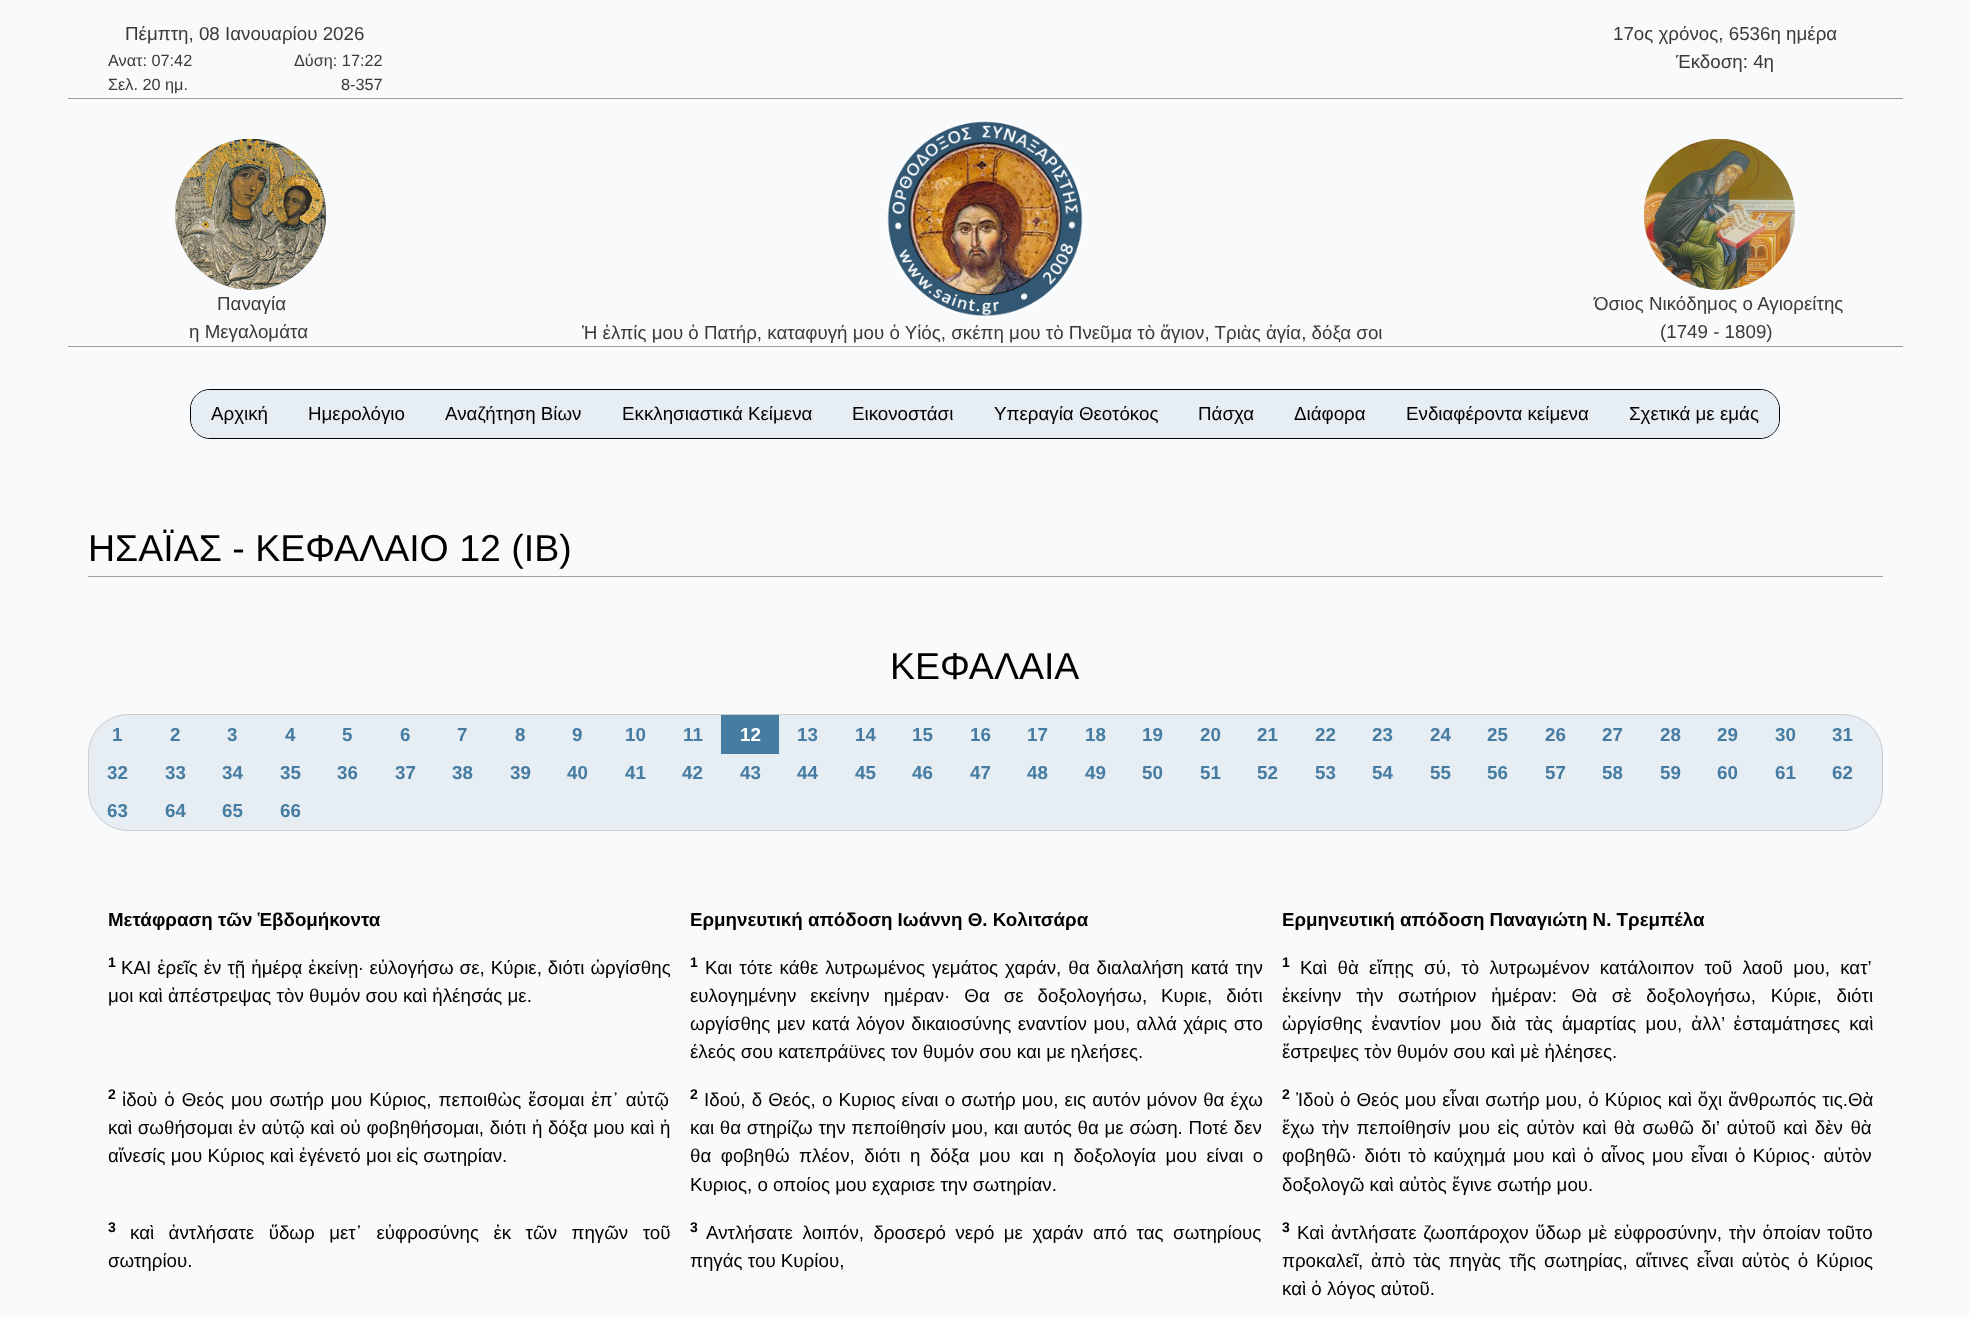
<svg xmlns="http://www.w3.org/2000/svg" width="1969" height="1317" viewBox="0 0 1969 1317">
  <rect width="100%" height="100%" fill="rgb(248,250,252)"/>
  <rect x="68" y="98" width="1835" height="1" fill="rgb(158,158,158)"/>
  <text x="125" y="40" font-family="Liberation Sans" font-size="18.75" fill="rgb(58,58,58)">Πέμπτη, 08 Ιανουαρίου 2026</text>
  <g font-family="Liberation Sans" font-size="16.25" fill="rgb(58,58,58)">
    <text x="108" y="66">Ανατ: 07:42</text>
    <text x="294" y="66">Δύση: 17:22</text>
    <text x="108" y="90">Σελ. 20 ημ.</text>
    <text x="341" y="90">8-357</text>
  </g>
  <g font-family="Liberation Sans" font-size="18.75" fill="rgb(58,58,58)">
    <text x="1613" y="40">17ος χρόνος, 6536η ημέρα</text>
    <text x="1676" y="68">Έκδοση: 4η</text>
  </g>
  <rect x="68" y="346" width="1835" height="1" fill="rgb(158,158,158)"/>
  <image x="175" y="138" width="152" height="152" href="pic1.png"/>
  <g font-family="Liberation Sans" font-size="18.75" fill="rgb(58,58,58)">
    <text x="217" y="310">Παναγία</text>
    <text x="189" y="338">η Μεγαλομάτα</text>
  </g>
  <image x="887" y="120" width="196" height="197" href="pic2.png"/>
  <text x="582" y="339" font-family="Liberation Sans" font-size="18.75" fill="rgb(58,58,58)">Ἡ ἐλπίς μου ὁ Πατήρ, καταφυγή μου ὁ Υἱός, σκέπη μου τὸ Πνεῦμα τὸ ἅγιον, Τριὰς ἁγία, δόξα σοι</text>
  <image x="1643" y="138" width="152" height="152" href="pic3.png"/>
  <g font-family="Liberation Sans" font-size="18.75" fill="rgb(58,58,58)">
    <text x="1594" y="310">Όσιος Νικόδημος ο Αγιορείτης</text>
    <text x="1660" y="338">(1749 - 1809)</text>
  </g>
  <rect x="190.5" y="389.5" width="1589" height="49" rx="19.5" fill="none" stroke="rgb(0,0,0)"/>
  <path d="M210 390H289V438H210C199.5 438 191 429.5 191 419V409C191 398.5 199.5 390 210 390Z" fill="rgb(230,238,244)"/>
  <text x="211" y="420" font-family="Liberation Sans" font-size="18.75" fill="rgb(0,0,0)">Αρχική</text>
  <rect x="289" y="390" width="1320" height="48" fill="rgb(230,238,244)"/>
  <g font-family="Liberation Sans" font-size="18.75" fill="rgb(0,0,0)">
    <text x="308" y="420">Ημερολόγιο</text>
    <text x="445" y="420">Αναζήτηση Βίων</text>
    <text x="622" y="420">Εκκλησιαστικά Κείμενα</text>
    <text x="852" y="420">Εικονοστάσι</text>
    <text x="994" y="420">Υπεραγία Θεοτόκος</text>
    <text x="1198" y="420">Πάσχα</text>
    <text x="1294" y="420">Διάφορα</text>
    <text x="1406" y="420">Ενδιαφέροντα κείμενα</text>
  </g>
  <path d="M1609 390H1760C1770.5 390 1779 398.5 1779 409V419C1779 429.5 1770.5 438 1760 438H1609Z" fill="rgb(230,238,244)"/>
  <text x="1629" y="420" font-family="Liberation Sans" font-size="18.75" fill="rgb(0,0,0)">Σχετικά με εμάς</text>
  <rect x="88" y="576" width="1795" height="1" fill="rgb(158,158,158)"/>
  <g font-family="Liberation Sans" font-size="37.5" fill="rgb(0,0,0)">
    <text x="88" y="561">ΗΣΑΪΑΣ - ΚΕΦΑΛΑΙΟ 12 (ΙΒ)</text>
    <text x="890" y="679">ΚΕΦΑΛΑΙΑ</text>
  </g>
  <rect x="88.5" y="714.5" width="1794" height="116" rx="39.5" fill="rgb(230,238,244)" stroke="rgb(204,204,204)"/>
  <g font-family="Liberation Sans" font-size="18.75" font-weight="bold" fill="rgb(70,124,162)">
    <text x="112" y="741">1</text>
    <text x="170" y="741">2</text>
    <text x="227" y="741">3</text>
    <text x="285" y="741">4</text>
    <text x="342" y="741">5</text>
    <text x="400" y="741">6</text>
    <text x="457" y="741">7</text>
    <text x="515" y="741">8</text>
    <text x="572" y="741">9</text>
    <text x="625" y="741">10</text>
    <text x="683" y="741">11</text>
  </g>
  <rect x="721" y="715" width="58" height="39" fill="rgb(70,124,162)"/>
  <text x="740" y="741" font-family="Liberation Sans" font-size="18.75" font-weight="bold" fill="rgb(255,255,255)">12</text>
  <g font-family="Liberation Sans" font-size="18.75" font-weight="bold" fill="rgb(70,124,162)">
    <text x="797" y="741">13</text>
    <text x="855" y="741">14</text>
    <text x="912" y="741">15</text>
    <text x="970" y="741">16</text>
    <text x="1027" y="741">17</text>
    <text x="1085" y="741">18</text>
    <text x="1142" y="741">19</text>
    <text x="1200" y="741">20</text>
    <text x="1257" y="741">21</text>
    <text x="1315" y="741">22</text>
    <text x="1372" y="741">23</text>
    <text x="1430" y="741">24</text>
    <text x="1487" y="741">25</text>
    <text x="1545" y="741">26</text>
    <text x="1602" y="741">27</text>
    <text x="1660" y="741">28</text>
    <text x="1717" y="741">29</text>
    <text x="1775" y="741">30</text>
    <text x="1832" y="741">31</text>
    <text x="107" y="779">32</text>
    <text x="165" y="779">33</text>
    <text x="222" y="779">34</text>
    <text x="280" y="779">35</text>
    <text x="337" y="779">36</text>
    <text x="395" y="779">37</text>
    <text x="452" y="779">38</text>
    <text x="510" y="779">39</text>
    <text x="567" y="779">40</text>
    <text x="625" y="779">41</text>
    <text x="682" y="779">42</text>
    <text x="740" y="779">43</text>
    <text x="797" y="779">44</text>
    <text x="855" y="779">45</text>
    <text x="912" y="779">46</text>
    <text x="970" y="779">47</text>
    <text x="1027" y="779">48</text>
    <text x="1085" y="779">49</text>
    <text x="1142" y="779">50</text>
    <text x="1200" y="779">51</text>
    <text x="1257" y="779">52</text>
    <text x="1315" y="779">53</text>
    <text x="1372" y="779">54</text>
    <text x="1430" y="779">55</text>
    <text x="1487" y="779">56</text>
    <text x="1545" y="779">57</text>
    <text x="1602" y="779">58</text>
    <text x="1660" y="779">59</text>
    <text x="1717" y="779">60</text>
    <text x="1775" y="779">61</text>
    <text x="1832" y="779">62</text>
    <text x="107" y="817">63</text>
    <text x="165" y="817">64</text>
    <text x="222" y="817">65</text>
    <text x="280" y="817">66</text>
  </g>
  <g font-family="Liberation Sans" font-size="18.75" font-weight="bold" fill="rgb(0,0,0)">
    <text x="108" y="926">Μετάφραση τῶν Ἑβδομήκοντα</text>
    <text x="690" y="926">Ερμηνευτική απόδοση Ιωάννη Θ. Κολιτσάρα</text>
    <text x="1282" y="926">Ερμηνευτική απόδοση Παναγιώτη Ν. Τρεμπέλα</text>
  </g>
  <text x="108" y="967" font-family="Liberation Sans" font-size="14" font-weight="bold" fill="rgb(0,0,0)">1</text>
  <g font-family="Liberation Sans" font-size="18.75" fill="rgb(0,0,0)">
    <text x="121" y="974" word-spacing="0.75">ΚΑΙ ἐρεῖς ἐν τῇ ἡμέρᾳ ἐκείνῃ· εὐλογήσω σε, Κύριε, διότι ὠργίσθης</text>
    <text x="108" y="1002">μοι καὶ ἀπέστρεψας τὸν θυμόν σου καὶ ἠλέησάς με.</text>
  </g>
  <text x="690" y="967" font-family="Liberation Sans" font-size="14" font-weight="bold" fill="rgb(0,0,0)">1</text>
  <g font-family="Liberation Sans" font-size="18.75" fill="rgb(0,0,0)">
    <text x="705" y="974" word-spacing="1.75">Και τότε κάθε λυτρωμένος γεμάτος χαράν, θα διαλαλήση κατά την</text>
    <text>
      <tspan x="690" y="1002" word-spacing="8.75">ευλογημένην εκείνην ημέραν· Θα σε δοξολογήσω, Κυριε, διότι</tspan>
      <tspan x="690" y="1030" word-spacing="1.25">ωργίσθης μεν κατά λόγον δικαιοσύνης εναντίον μου, αλλά χάρις στο</tspan>
      <tspan x="690" y="1058">έλεός σου κατεπράϋνες τον θυμόν σου και με ηλεήσες.</tspan>
    </text>
  </g>
  <text x="1282" y="967" font-family="Liberation Sans" font-size="14" font-weight="bold" fill="rgb(0,0,0)">1</text>
  <g font-family="Liberation Sans" font-size="18.75" fill="rgb(0,0,0)">
    <text x="1300" y="974" word-spacing="5">Καὶ θὰ εἴπῃς σύ, τὸ λυτρωμένον κατάλοιπον τοῦ λαοῦ μου, κατ’</text>
    <text>
      <tspan x="1282" y="1002" word-spacing="9.5">ἐκείνην τὴν σωτήριον ἡμέραν: Θὰ σὲ δοξολογήσω, Κύριε, διότι</tspan>
      <tspan x="1282" y="1030" word-spacing="4">ὠργίσθης ἐναντίον μου διὰ τὰς ἁμαρτίας μου, ἀλλ’ ἐσταμάτησες καὶ</tspan>
      <tspan x="1282" y="1058">ἔστρεψες τὸν θυμόν σου καὶ μὲ ἠλέησες.</tspan>
    </text>
  </g>
  <text x="108" y="1099" font-family="Liberation Sans" font-size="14" font-weight="bold" fill="rgb(0,0,0)">2</text>
  <g font-family="Liberation Sans" font-size="18.75" fill="rgb(0,0,0)">
    <text x="122" y="1106" word-spacing="1.75">ἰδοὺ ὁ Θεός μου σωτήρ μου Κύριος, πεποιθὼς ἔσομαι ἐπ᾿ αὐτῷ</text>
    <text>
      <tspan x="108" y="1134" word-spacing="0.4">καὶ σωθήσομαι ἐν αὐτῷ καὶ οὐ φοβηθήσομαι, διότι ἡ δόξα μου καὶ ἡ</tspan>
      <tspan x="108" y="1162">αἴνεσίς μου Κύριος καὶ ἐγένετό μοι εἰς σωτηρίαν.</tspan>
    </text>
  </g>
  <text x="690" y="1099" font-family="Liberation Sans" font-size="14" font-weight="bold" fill="rgb(0,0,0)">2</text>
  <g font-family="Liberation Sans" font-size="18.75" fill="rgb(0,0,0)">
    <text x="704" y="1106" word-spacing="0.9">Ιδού, δ Θεός, ο Κυριος είναι ο σωτήρ μου, εις αυτόν μόνον θα έχω</text>
    <text>
      <tspan x="690" y="1134" word-spacing="0.5">και θα στηρίζω την πεποίθησίν μου, και αυτός θα με σώση. Ποτέ δεν</tspan>
      <tspan x="690" y="1162" word-spacing="4.25">θα φοβηθώ πλέον, διότι η δόξα μου και η δοξολογία μου είναι ο</tspan>
      <tspan x="690" y="1191">Κυριος, ο οποίος μου εχαρισε την σωτηρίαν.</tspan>
    </text>
  </g>
  <text x="1282" y="1099" font-family="Liberation Sans" font-size="14" font-weight="bold" fill="rgb(0,0,0)">2</text>
  <g font-family="Liberation Sans" font-size="18.75" fill="rgb(0,0,0)">
    <text x="1296" y="1106" word-spacing="0.75">Ἰδοὺ ὁ Θεός μου εἶναι σωτήρ μου, ὁ Κύριος καὶ ὄχι ἄνθρωπός τις.Θὰ</text>
    <text>
      <tspan x="1282" y="1134" word-spacing="2.25">ἔχω τὴν πεποίθησίν μου εἰς αὐτὸν καὶ θὰ σωθῶ δι’ αὐτοῦ καὶ δὲν θὰ</tspan>
      <tspan x="1282" y="1162" word-spacing="2.1">φοβηθῶ· διότι τὸ καύχημά μου καὶ ὁ αἶνος μου εἶναι ὁ Κύριος· αὐτὸν</tspan>
      <tspan x="1282" y="1191">δοξολογῶ καὶ αὐτὸς ἔγινε σωτήρ μου.</tspan>
    </text>
  </g>
  <text x="108" y="1232" font-family="Liberation Sans" font-size="14" font-weight="bold" fill="rgb(0,0,0)">3</text>
  <g font-family="Liberation Sans" font-size="18.75" fill="rgb(0,0,0)">
    <text x="130" y="1239" word-spacing="9.25">καὶ ἀντλήσατε ὕδωρ μετ᾿ εὐφροσύνης ἐκ τῶν πηγῶν τοῦ</text>
    <text x="108" y="1267">σωτηρίου.</text>
  </g>
  <text x="690" y="1232" font-family="Liberation Sans" font-size="14" font-weight="bold" fill="rgb(0,0,0)">3</text>
  <g font-family="Liberation Sans" font-size="18.75" fill="rgb(0,0,0)">
    <text x="706" y="1239" word-spacing="4.25">Αντλήσατε λοιπόν, δροσερό νερό με χαράν από τας σωτηρίους</text>
    <text x="690" y="1267">πηγάς του Κυρίου,</text>
  </g>
  <text x="1282" y="1232" font-family="Liberation Sans" font-size="14" font-weight="bold" fill="rgb(0,0,0)">3</text>
  <g font-family="Liberation Sans" font-size="18.75" fill="rgb(0,0,0)">
    <text x="1297" y="1239" word-spacing="1.5">Καὶ ἀντλήσατε ζωοπάροχον ὕδωρ μὲ εὐφροσύνην, τὴν ὁποίαν τοῦτο</text>
    <text>
      <tspan x="1282" y="1267" word-spacing="2.75">προκαλεῖ, ἀπὸ τὰς πηγὰς τῆς σωτηρίας, αἵτινες εἶναι αὐτὸς ὁ Κύριος</tspan>
      <tspan x="1282" y="1295">καὶ ὁ λόγος αὐτοῦ.</tspan>
    </text>
  </g>
</svg>
